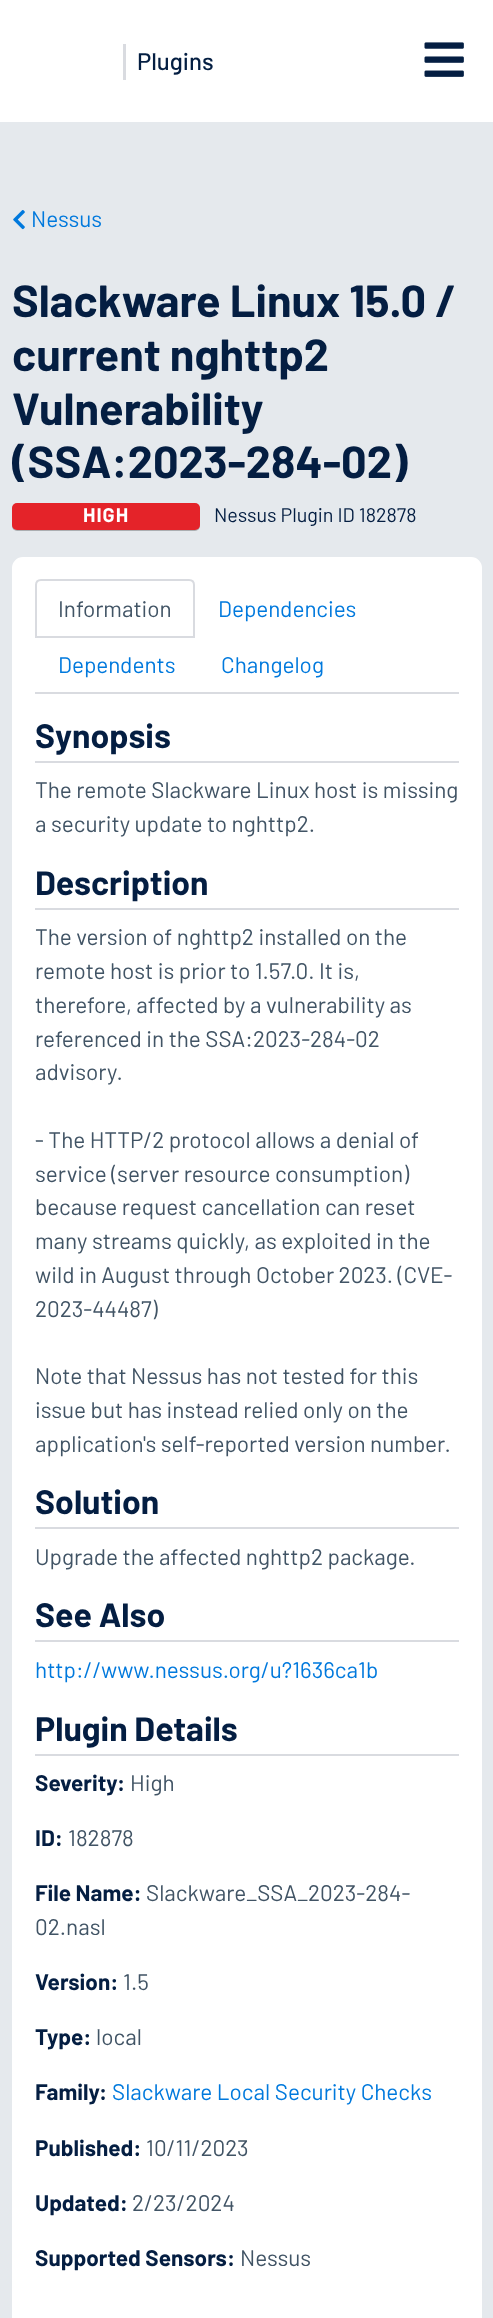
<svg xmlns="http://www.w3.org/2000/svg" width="493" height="2318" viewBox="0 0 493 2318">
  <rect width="100%" height="100%" fill="rgb(255,255,255)"/>
  <rect x="123" y="44" width="3" height="36" fill="rgb(217,219,224)"/>
  <text x="137" y="70" font-family="Barlow" font-size="24" font-weight="500" fill="rgb(4,30,66)">Plugins</text>
  <image x="424" y="42" width="40" height="35" href="pic1.png"/>
  <rect x="0" y="122" width="493" height="2196" fill="rgb(229,233,237)"/>
  <image x="13" y="210" width="12" height="20" href="pic2.png"/>
  <text x="31" y="227" font-family="Barlow" font-size="22.5" fill="rgb(0,121,221)">Nessus</text>
  <g font-family="Barlow" font-size="45" font-weight="bold" fill="rgb(4,30,66)">
    <text>
      <tspan x="12" y="317">Slackware Linux 15.0 /</tspan>
      <tspan x="12" y="371">current nghttp2</tspan>
      <tspan x="12" y="425">Vulnerability</tspan>
      <tspan x="12" y="478">(SSA:2023-284-02)</tspan>
    </text>
  </g>
  <rect x="12" y="504" width="188" height="27" rx="5" fill="rgba(0,0,0,0.25)" filter="blur(0.5px)"/>
  <rect x="12" y="503" width="188" height="27" rx="5" fill="rgb(228,35,41)"/>
  <text x="83" y="522" font-family="Barlow" font-size="19.75" font-weight="bold" letter-spacing="1" fill="rgb(255,255,255)">HIGH</text>
  <text x="214" y="522" font-family="Barlow" font-size="19.75" fill="rgb(4,30,66)">Nessus Plugin ID 182878</text>
  <rect x="13" y="558" width="468" height="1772" rx="10" fill="rgb(255,255,255)" stroke="rgb(255,255,255)" stroke-width="2"/>
  <rect x="35" y="692" width="424" height="2" fill="rgb(217,219,224)"/>
  <path d="M41 580H189C192 580 194 582 194 585V637H36V585C36 582 38 580 41 580Z" fill="none" stroke="rgb(217,219,224)" stroke-width="2"/>
  <text x="58" y="617" font-family="Barlow" font-size="22.5" fill="rgb(65,84,101)">Information</text>
  <g font-family="Barlow" font-size="22.5" fill="rgb(0,121,221)">
    <text x="218" y="617">Dependencies</text>
    <text x="58" y="673">Dependents</text>
    <text x="221" y="673">Changelog</text>
  </g>
  <rect x="35" y="761" width="424" height="2" fill="rgb(217,219,224)"/>
  <text x="35" y="748" font-family="Barlow" font-size="33.75" font-weight="bold" fill="rgb(4,30,66)">Synopsis</text>
  <g font-family="Barlow" font-size="22.5" fill="rgb(65,84,101)">
    <text>
      <tspan x="35" y="798">The remote Slackware Linux host is missing</tspan>
      <tspan x="35" y="832">a security update to nghttp2.</tspan>
    </text>
  </g>
  <rect x="35" y="908" width="424" height="2" fill="rgb(217,219,224)"/>
  <text x="35" y="895" font-family="Barlow" font-size="33.75" font-weight="bold" fill="rgb(4,30,66)">Description</text>
  <g font-family="Barlow" font-size="22.5" fill="rgb(65,84,101)">
    <text>
      <tspan x="35" y="945">The version of nghttp2 installed on the</tspan>
      <tspan x="35" y="979">remote host is prior to 1.57.0. It is,</tspan>
      <tspan x="35" y="1013">therefore, affected by a vulnerability as</tspan>
      <tspan x="35" y="1047">referenced in the SSA:2023-284-02</tspan>
      <tspan x="35" y="1080">advisory.</tspan>
    </text>
    <text>
      <tspan x="35" y="1148">- The HTTP/2 protocol allows a denial of</tspan>
      <tspan x="35" y="1182">service (server resource consumption)</tspan>
      <tspan x="35" y="1215">because request cancellation can reset</tspan>
      <tspan x="35" y="1249">many streams quickly, as exploited in the</tspan>
      <tspan x="35" y="1283">wild in August through October 2023. (CVE-</tspan>
      <tspan x="35" y="1317">2023-44487)</tspan>
    </text>
    <text>
      <tspan x="35" y="1384">Note that Nessus has not tested for this</tspan>
      <tspan x="35" y="1418">issue but has instead relied only on the</tspan>
      <tspan x="35" y="1452">application's self-reported version number.</tspan>
    </text>
  </g>
  <rect x="35" y="1527" width="424" height="2" fill="rgb(217,219,224)"/>
  <text x="35" y="1514" font-family="Barlow" font-size="33.75" font-weight="bold" fill="rgb(4,30,66)">Solution</text>
  <text x="35" y="1565" font-family="Barlow" font-size="22.5" fill="rgb(65,84,101)">Upgrade the affected nghttp2 package.</text>
  <rect x="35" y="1640" width="424" height="2" fill="rgb(217,219,224)"/>
  <text x="35" y="1627" font-family="Barlow" font-size="33.75" font-weight="bold" fill="rgb(4,30,66)">See Also</text>
  <text x="35" y="1678" font-family="Barlow" font-size="22.5" fill="rgb(0,121,221)">http://www.nessus.org/u?1636ca1b</text>
  <rect x="35" y="1754" width="424" height="2" fill="rgb(217,219,224)"/>
  <text x="35" y="1741" font-family="Barlow" font-size="33.75" font-weight="bold" fill="rgb(4,30,66)">Plugin Details</text>
  <g font-family="Barlow" font-size="22.5" font-weight="bold" fill="rgb(4,30,66)">
    <text x="35" y="1791">Severity</text>
    <text x="117" y="1791">:</text>
  </g>
  <text x="130" y="1791" font-family="Barlow" font-size="22.5" fill="rgb(65,84,101)">High</text>
  <text x="35" y="1846" font-family="Barlow" font-size="22.5" font-weight="bold" fill="rgb(4,30,66)">ID:</text>
  <text x="68" y="1846" font-family="Barlow" font-size="22.5" fill="rgb(65,84,101)">182878</text>
  <text x="35" y="1901" font-family="Barlow" font-size="22.5" font-weight="bold" fill="rgb(4,30,66)">File Name:</text>
  <g font-family="Barlow" font-size="22.5" fill="rgb(65,84,101)">
    <text x="146" y="1901">Slackware_SSA_2023-284-</text>
    <text x="35" y="1935">02.nasl</text>
  </g>
  <text x="35" y="1990" font-family="Barlow" font-size="22.5" font-weight="bold" fill="rgb(4,30,66)">Version:</text>
  <text x="123" y="1990" font-family="Barlow" font-size="22.5" fill="rgb(65,84,101)">1.5</text>
  <text x="35" y="2045" font-family="Barlow" font-size="22.5" font-weight="bold" fill="rgb(4,30,66)">Type:</text>
  <text x="96" y="2045" font-family="Barlow" font-size="22.5" fill="rgb(65,84,101)">local</text>
  <g font-family="Barlow" font-size="22.5" font-weight="bold" fill="rgb(4,30,66)">
    <text x="35" y="2100">Family</text>
    <text x="99" y="2100">:</text>
  </g>
  <text x="112" y="2100" font-family="Barlow" font-size="22.5" fill="rgb(0,121,221)">Slackware Local Security Checks</text>
  <text x="35" y="2156" font-family="Barlow" font-size="22.5" font-weight="bold" fill="rgb(4,30,66)">Published:</text>
  <text x="146" y="2156" font-family="Barlow" font-size="22.5" fill="rgb(65,84,101)">10/11/2023</text>
  <text x="35" y="2211" font-family="Barlow" font-size="22.5" font-weight="bold" fill="rgb(4,30,66)">Updated:</text>
  <text x="132" y="2211" font-family="Barlow" font-size="22.5" fill="rgb(65,84,101)">2/23/2024</text>
  <text x="35" y="2266" font-family="Barlow" font-size="22.5" font-weight="bold" fill="rgb(4,30,66)">Supported Sensors:</text>
  <text x="240" y="2266" font-family="Barlow" font-size="22.5" fill="rgb(65,84,101)">Nessus</text>
</svg>
